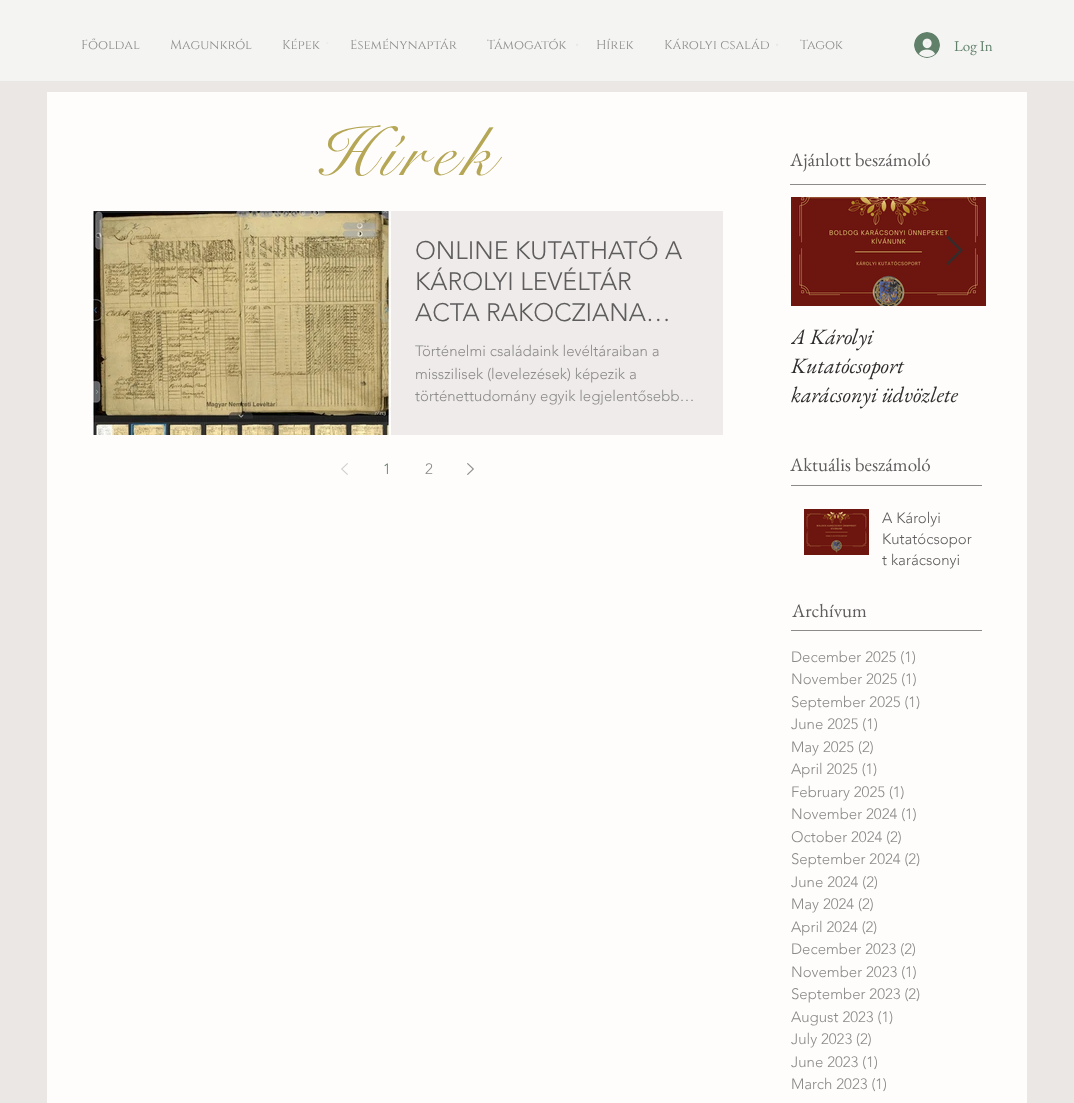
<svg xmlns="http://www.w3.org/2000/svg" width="1074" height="1103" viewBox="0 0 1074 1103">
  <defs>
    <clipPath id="clip1"><rect x="791" y="322" width="195" height="87"/></clipPath>
  </defs>
  <rect width="100%" height="100%" fill="rgb(234,231,229)"/>
  <rect x="0" y="0" width="1074" height="81" fill="rgb(244,244,243)"/>
  <image x="126" y="42" width="852" height="4" href="pic1.png"/>
  <g font-family="Cinzel" font-size="13" fill="rgb(140,139,137)">
    <text x="81" y="49">Főoldal</text>
    <text x="170" y="49">Magunkról</text>
    <text x="282" y="49">Képek</text>
    <text x="350" y="49">Eseménynaptár</text>
    <text x="487" y="49">Támogatók</text>
    <text x="596" y="49">Hírek</text>
    <text x="664" y="49">Károlyi család</text>
    <text x="800" y="49">Tagok</text>
  </g>
  <image x="914" y="32" width="26" height="26" href="pic2.png"/>
  <text x="954" y="51" font-family="EB Garamond" font-size="15" fill="rgb(97,128,106)">Log In</text>
  <rect x="47" y="92" width="980" height="1011" fill="rgb(255,253,252)"/>
  <text x="316" y="175" font-family="'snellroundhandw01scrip'" font-size="69" letter-spacing="7" fill="rgb(181,167,86)">Hírek</text>
  <text x="790" y="166" font-family="EB Garamond" font-size="19" fill="rgb(94,92,92)">Ajánlott beszámoló</text>
  <rect x="790" y="184" width="196" height="1" fill="rgb(140,139,137)"/>
  <image x="92" y="211" width="299" height="224" href="pic3.png"/>
  <rect x="391" y="211" width="332" height="224" fill="rgb(238,235,234)"/>
  <g font-family="'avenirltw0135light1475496'" font-size="25" font-weight="300" fill="rgb(94,92,92)">
    <text>
      <tspan x="415" y="259">ONLINE KUTATHATÓ A</tspan>
      <tspan x="415" y="290">KÁROLYI LEVÉLTÁR</tspan>
      <tspan x="415" y="321">ACTA RAKOCZIANA…</tspan>
    </text>
  </g>
  <g font-family="'avenirltw0135light1475496'" font-size="15" font-weight="300" fill="rgb(140,139,137)">
    <text>
      <tspan x="415" y="356">Történelmi családaink levéltáraiban a</tspan>
      <tspan x="415" y="379">misszilisek (levelezések) képezik a</tspan>
      <tspan x="415" y="401">történettudomány egyik legjelentősebb…</tspan>
    </text>
  </g>
  <image x="341" y="463" width="7" height="12" href="pic4.png"/>
  <text x="383" y="474" font-family="'avenirltw0135light1475496'" font-size="15" font-weight="300" fill="rgb(97,128,106)">1</text>
  <text x="425" y="474" font-family="'avenirltw0135light1475496'" font-size="15" font-weight="300" fill="rgb(140,139,137)">2</text>
  <image x="467" y="463" width="7" height="12" href="pic5.png"/>
  <image x="793" y="197" width="193" height="109" href="pic8.png"/>
  <image x="946" y="236" width="17" height="29" href="pic6.png"/>
  <image x="791" y="197" width="2" height="109" href="pic7.png"/>
  <g clip-path="url(#clip1)">
    <text x="791" y="344" font-family="EB Garamond" font-size="22" font-style="italic" fill="rgb(47,46,46)">A Károlyi</text>
  </g>
  <g font-family="EB Garamond" font-size="22" font-style="italic" fill="rgb(47,46,46)">
    <text>
      <tspan x="791" y="373">Kutatócsoport</tspan>
      <tspan x="791" y="402">karácsonyi üdvözlete</tspan>
    </text>
  </g>
  <text x="790" y="471" font-family="EB Garamond" font-size="19" fill="rgb(94,92,92)">Aktuális beszámoló</text>
  <rect x="791" y="485" width="191" height="1" fill="rgb(140,139,137)"/>
  <image x="804" y="509" width="65" height="46" href="pic9.png"/>
  <g font-family="'avenirltw0135light1475496'" font-size="15" font-weight="300" fill="rgb(94,92,92)">
    <text>
      <tspan x="882" y="523">A Károlyi</tspan>
      <tspan x="882" y="544">Kutatócsopor</tspan>
      <tspan x="882" y="565">t karácsonyi</tspan>
    </text>
  </g>
  <text x="792" y="617" font-family="EB Garamond" font-size="19" fill="rgb(94,92,92)">Archívum</text>
  <rect x="791" y="630" width="191" height="1" fill="rgb(140,139,137)"/>
  <g font-family="'avenirltw0135light1475496'" font-size="15" font-weight="300" fill="rgb(140,139,137)">
    <text>
      <tspan x="791" y="662">December 2025 (1)</tspan>
      <tspan x="791" y="684">November 2025 (1)</tspan>
      <tspan x="791" y="707">September 2025 (1)</tspan>
      <tspan x="791" y="729">June 2025 (1)</tspan>
      <tspan x="791" y="752">May 2025 (2)</tspan>
      <tspan x="791" y="774">April 2025 (1)</tspan>
      <tspan x="791" y="797">February 2025 (1)</tspan>
      <tspan x="791" y="819">November 2024 (1)</tspan>
      <tspan x="791" y="842">October 2024 (2)</tspan>
      <tspan x="791" y="864">September 2024 (2)</tspan>
      <tspan x="791" y="887">June 2024 (2)</tspan>
      <tspan x="791" y="909">May 2024 (2)</tspan>
      <tspan x="791" y="932">April 2024 (2)</tspan>
      <tspan x="791" y="954">December 2023 (2)</tspan>
      <tspan x="791" y="977">November 2023 (1)</tspan>
      <tspan x="791" y="999">September 2023 (2)</tspan>
      <tspan x="791" y="1022">August 2023 (1)</tspan>
      <tspan x="791" y="1044">July 2023 (2)</tspan>
      <tspan x="791" y="1067">June 2023 (1)</tspan>
      <tspan x="791" y="1089">March 2023 (1)</tspan>
    </text>
  </g>
</svg>
